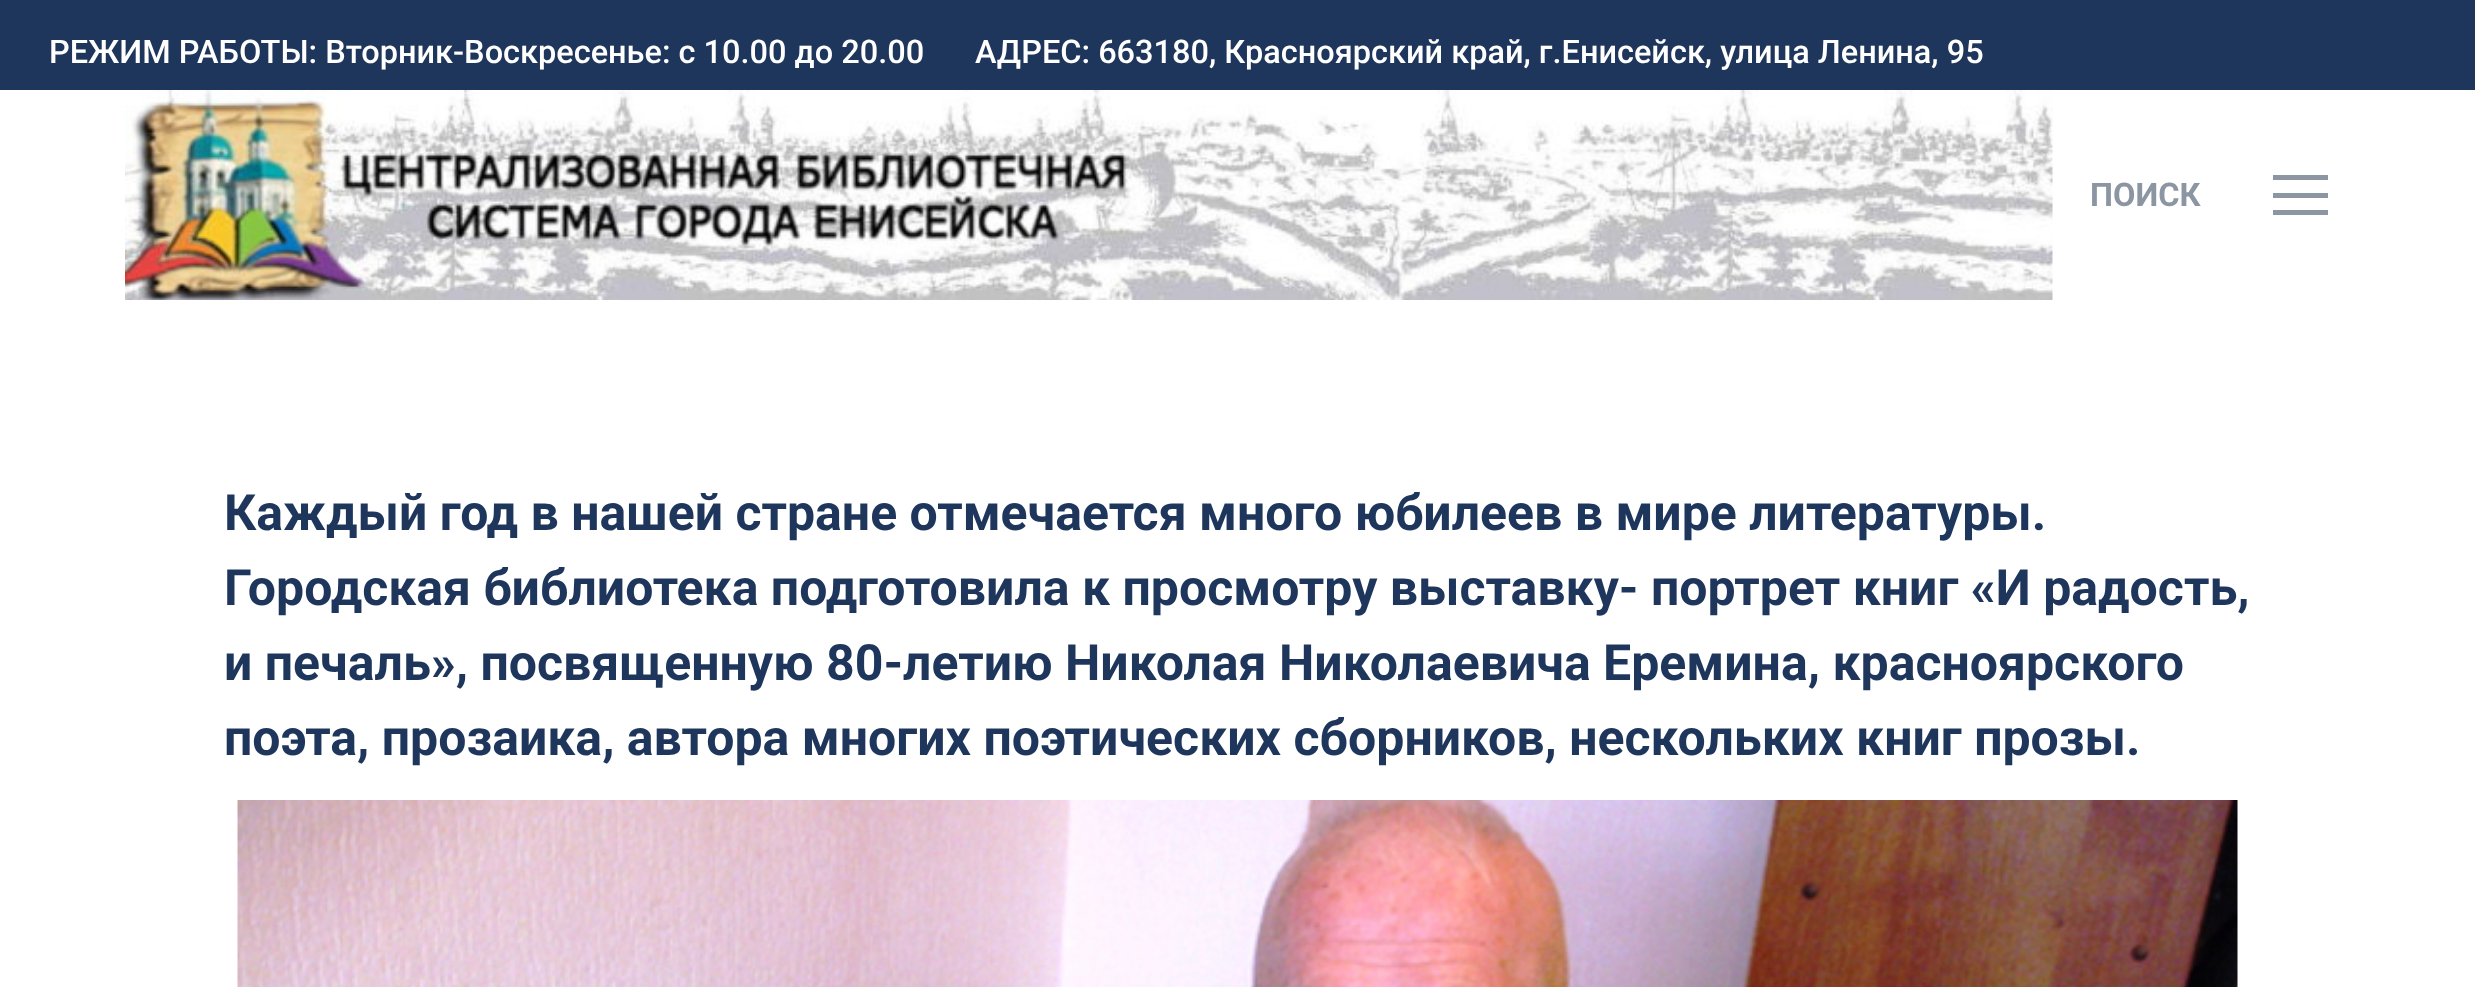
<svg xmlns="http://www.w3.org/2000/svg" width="2475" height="987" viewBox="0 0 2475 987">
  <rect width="100%" height="100%" fill="rgb(255,255,255)"/>
  <rect x="0" y="0" width="2475" height="90" fill="rgb(31,54,92)"/>
  <g font-family="Roboto" font-size="32.5" font-weight="500" fill="rgb(255,255,255)">
    <text x="49" y="63">РЕЖИМ РАБОТЫ: Вторник-Воскресенье: с 10.00 до 20.00</text>
    <text x="975" y="63">АДРЕС: 663180, Красноярский край, г.Енисейск, улица Ленина, 95</text>
  </g>
  <image x="125" y="90" width="1928" height="210" href="pic1.png"/>
  <text x="2090" y="206" font-family="Roboto" font-size="32.5" font-weight="bold" fill="rgb(140,149,162)">ПОИСК</text>
  <rect x="2273" y="175" width="55" height="5" fill="rgb(140,149,162)"/>
  <rect x="2273" y="193" width="55" height="5" fill="rgb(140,149,162)"/>
  <rect x="2273" y="210" width="55" height="5" fill="rgb(140,149,162)"/>
  <g font-family="Roboto" font-size="50" font-weight="bold" fill="rgb(31,54,92)">
    <text>
      <tspan x="224" y="530">Каждый год в нашей стране отмечается много юбилеев в мире литературы.</tspan>
      <tspan x="224" y="605">Городская библиотека подготовила к просмотру выставку- портрет книг «И радость,</tspan>
      <tspan x="224" y="680">и печаль», посвященную 80-летию Николая Николаевича Еремина, красноярского</tspan>
      <tspan x="224" y="755">поэта, прозаика, автора многих поэтических сборников, нескольких книг прозы.</tspan>
    </text>
  </g>
  <image x="237" y="800" width="2001" height="187" href="pic2.png"/>
</svg>
